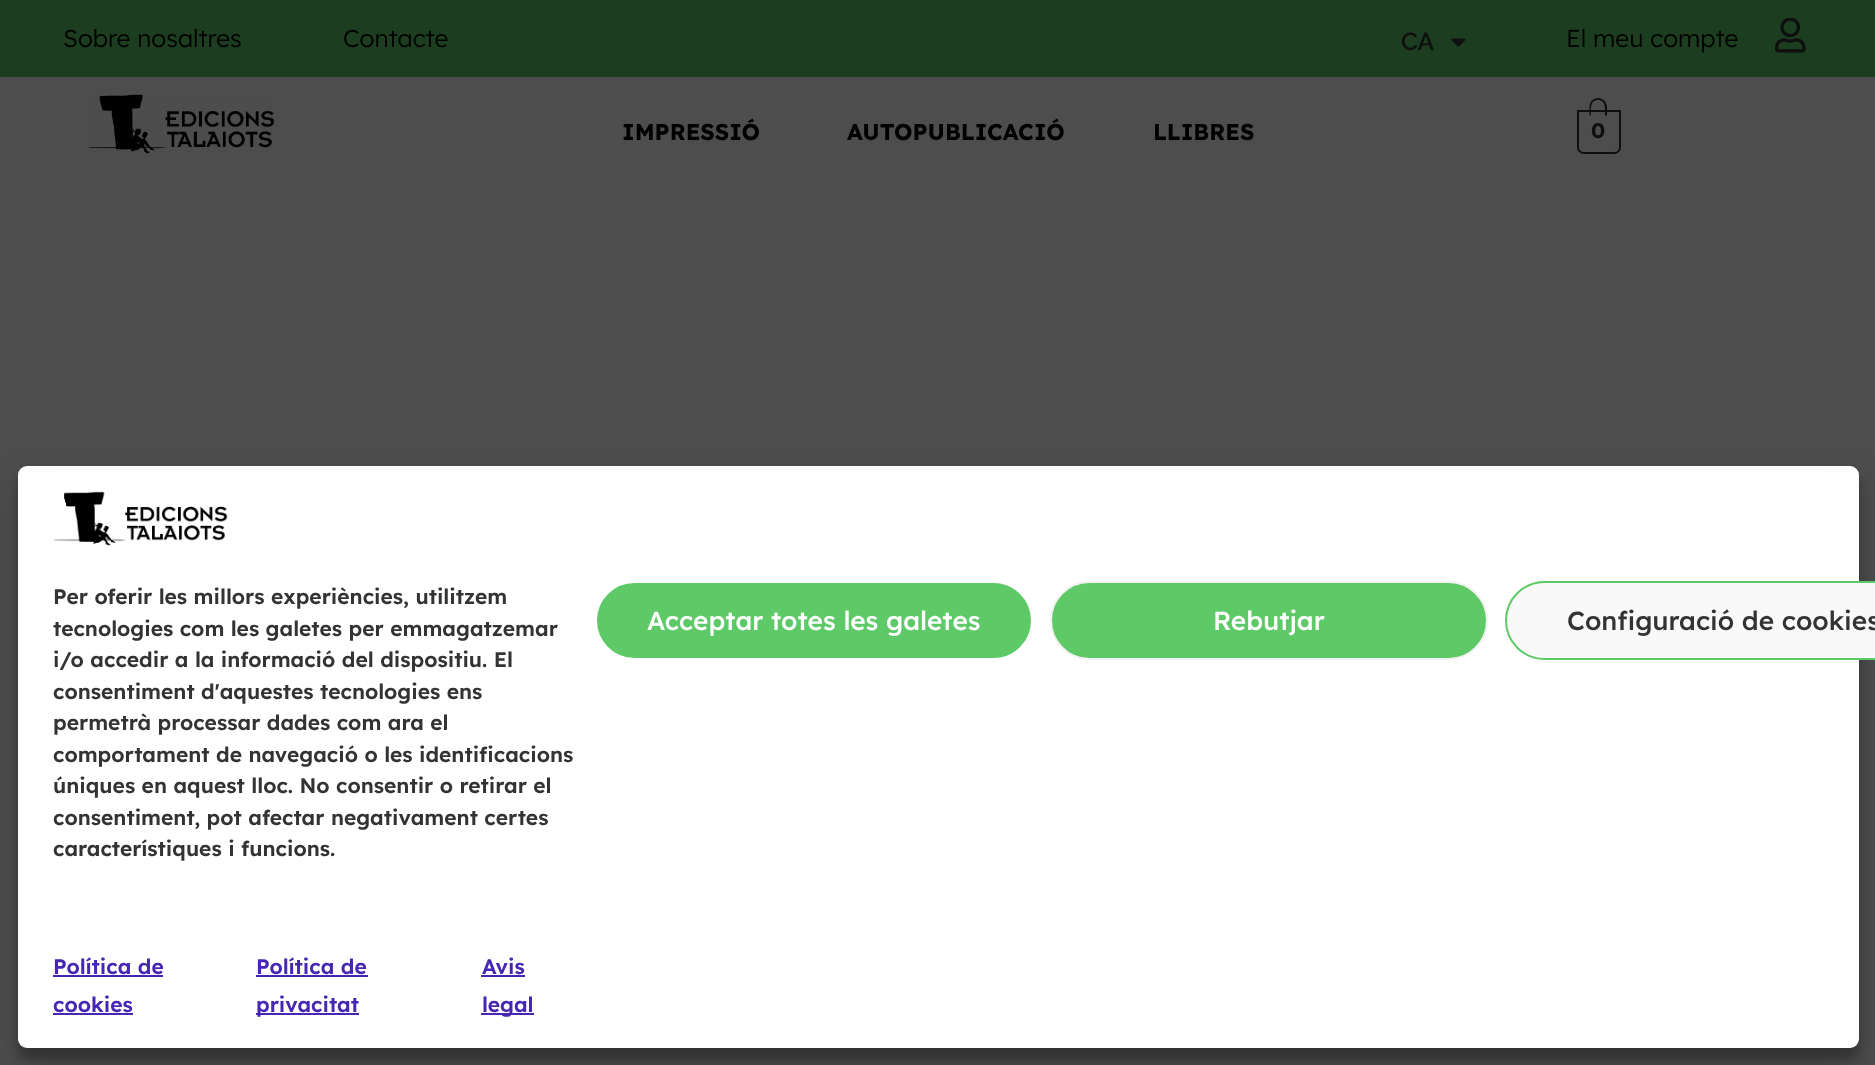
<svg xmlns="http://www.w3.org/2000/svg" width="1875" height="1065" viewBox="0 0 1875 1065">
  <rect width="100%" height="100%" fill="rgb(77,77,77)"/>
  <rect x="0" y="0" width="1875" height="77" fill="rgb(28,61,31)"/>
  <g font-family="Lexend Deca" font-size="24.5" font-weight="300" fill="rgb(0,0,0)">
    <text x="63" y="47">Sobre nosaltres</text>
    <text x="343" y="47">Contacte</text>
  </g>
  <text x="1401" y="50" font-family="Raleway" font-size="24.5" font-weight="600" fill="rgb(15,15,15)">CA</text>
  <image x="1451" y="38" width="15" height="9" href="pic1.png"/>
  <text x="1566" y="47" font-family="Lexend Deca" font-size="24.5" font-weight="300" fill="rgb(0,0,0)">El meu compte</text>
  <image x="1774" y="18" width="32" height="35" href="pic2.png"/>
  <image x="88" y="94" width="186" height="60" href="pic3.png"/>
  <g font-family="Lexend Deca" font-size="22.75" font-weight="bold" fill="rgb(0,0,0)">
    <text x="622" y="140">IMPRESSIÓ</text>
    <text x="847" y="140">AUTOPUBLICACIÓ</text>
    <text x="1153" y="140">LLIBRES</text>
  </g>
  <path d="M1578 111H1620V147C1620 150.5 1617.5 153 1614 153H1584C1580.5 153 1578 150.5 1578 147Z" fill="none" stroke="rgb(15,15,15)" stroke-width="2"/>
  <path d="M1598 98C1603 98 1607 102 1607 107V115.5H1589.5V107C1589.5 102 1593 98 1598 98ZM1598 100C1606.5 100 1605 110 1605 115.5H1591C1591 110 1589.5 100 1598 100Z" fill="rgb(15,15,15)" fill-rule="evenodd"/>
  <text x="1591" y="138" font-family="Lexend Deca" font-size="21" font-weight="bold" fill="rgb(15,15,15)">0</text>
  <rect x="18" y="476" width="1841" height="583" rx="9" fill="rgba(0,0,0,0.23)" filter="blur(5px)"/>
  <rect x="18" y="483" width="1841" height="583" rx="9" fill="rgba(0,0,0,0.19)" filter="blur(17.5px)"/>
  <rect x="18" y="466" width="1841" height="582" rx="9" fill="rgb(255,255,255)"/>
  <image x="53" y="491" width="175" height="55" href="pic4.png"/>
  <g font-family="Lexend Deca" font-size="21" font-weight="600" fill="rgb(51,51,51)">
    <text>
      <tspan x="53" y="604">Per oferir les millors experiències, utilitzem</tspan>
      <tspan x="53" y="636">tecnologies com les galetes per emmagatzemar</tspan>
      <tspan x="53" y="667">i/o accedir a la informació del dispositiu. El</tspan>
      <tspan x="53" y="699">consentiment d'aquestes tecnologies ens</tspan>
      <tspan x="53" y="730">permetrà processar dades com ara el</tspan>
      <tspan x="53" y="762">comportament de navegació o les identificacions</tspan>
      <tspan x="53" y="793">úniques en aquest lloc. No consentir o retirar el</tspan>
      <tspan x="53" y="825">consentiment, pot afectar negativament certes</tspan>
      <tspan x="53" y="856">característiques i funcions.</tspan>
    </text>
  </g>
  <rect x="596" y="582" width="436" height="77" rx="38.5" fill="rgb(93,202,103)" stroke="rgb(255,255,255)" stroke-width="2"/>
  <text x="647" y="630" font-family="Lexend Deca" font-size="26.25" font-weight="500" fill="rgb(255,255,255)">Acceptar totes les galetes</text>
  <rect x="1051" y="582" width="436" height="77" rx="38.5" fill="rgb(93,202,103)" stroke="rgb(242,242,242)" stroke-width="2"/>
  <text x="1213" y="630" font-family="Lexend Deca" font-size="26.25" font-weight="500" fill="rgb(255,255,255)">Rebutjar</text>
  <rect x="1506" y="582" width="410" height="77" rx="38.5" fill="rgb(249,249,249)" stroke="rgb(93,202,103)" stroke-width="2"/>
  <text x="1567" y="630" font-family="Lexend Deca" font-size="26.25" font-weight="500" fill="rgb(51,51,51)">Configuració de cookies</text>
  <text x="53" y="974" font-family="Lexend Deca" font-size="21" font-weight="600" fill="rgb(70,38,178)">Política de</text>
  <rect x="53" y="975" width="110" height="2" fill="rgb(70,38,178)"/>
  <text x="53" y="1012" font-family="Lexend Deca" font-size="21" font-weight="600" fill="rgb(70,38,178)">cookies</text>
  <rect x="53" y="1013" width="80" height="2" fill="rgb(70,38,178)"/>
  <text x="256" y="974" font-family="Lexend Deca" font-size="21" font-weight="600" fill="rgb(70,38,178)">Política de</text>
  <rect x="256" y="975" width="112" height="2" fill="rgb(70,38,178)"/>
  <rect x="256" y="1013" width="103" height="2" fill="rgb(70,38,178)"/>
  <g font-family="Lexend Deca" font-size="21" font-weight="600" fill="rgb(70,38,178)">
    <text x="256" y="1012">privacitat</text>
    <text x="482" y="974">Avis</text>
  </g>
  <rect x="481" y="975" width="44" height="2" fill="rgb(70,38,178)"/>
  <rect x="481" y="1013" width="53" height="2" fill="rgb(70,38,178)"/>
  <text x="482" y="1012" font-family="Lexend Deca" font-size="21" font-weight="600" fill="rgb(70,38,178)">legal</text>
</svg>
